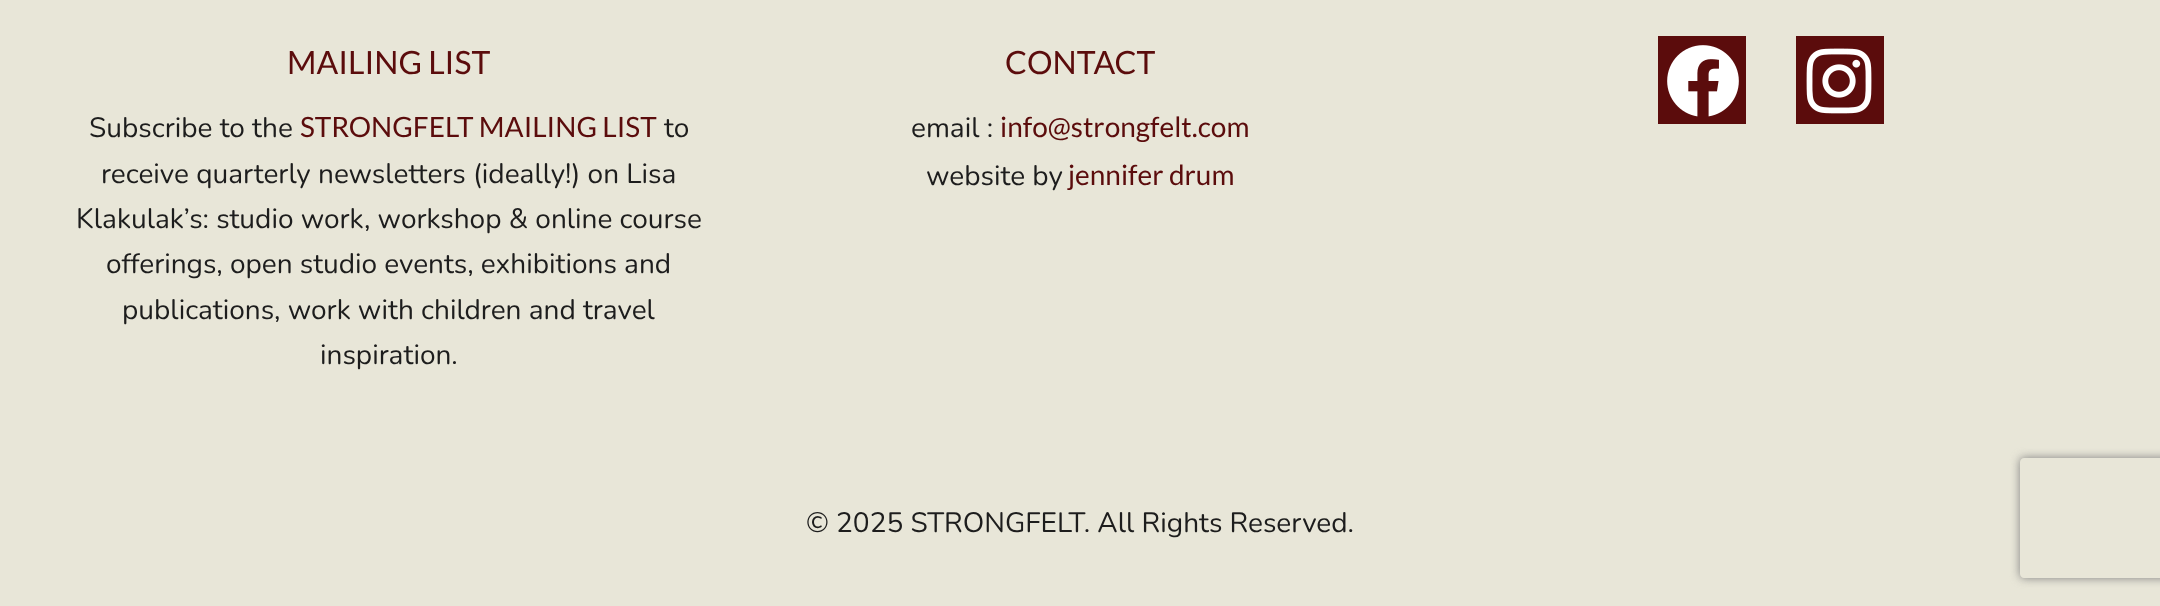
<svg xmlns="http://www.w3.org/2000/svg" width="2160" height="606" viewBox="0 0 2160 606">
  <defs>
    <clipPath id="clip1"><path d="M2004 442H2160V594H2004ZM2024 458H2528C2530 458 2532 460 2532 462V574C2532 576 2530 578 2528 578H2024C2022 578 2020 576 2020 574V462C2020 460 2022 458 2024 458Z" clip-rule="evenodd"/></clipPath>
  </defs>
  <rect width="100%" height="100%" fill="rgb(232,230,216)"/>
  <text x="287" y="74" font-family="Lato" font-size="32" fill="rgb(91,12,12)">MAILING LIST</text>
  <text x="89" y="137" font-family="Nunito" font-size="28" fill="rgb(29,29,29)">Subscribe to the</text>
  <text x="300" y="137" font-family="Lato" font-size="28" fill="rgb(91,12,12)">STRONGFELT MAILING LIST</text>
  <g font-family="Nunito" font-size="28" fill="rgb(29,29,29)">
    <text x="664" y="137">to</text>
    <text x="101" y="183">receive quarterly newsletters (ideally!) on Lisa</text>
    <text x="76" y="228">Klakulak’s: studio work, workshop &amp; online course</text>
    <text x="106" y="273">offerings, open studio events, exhibitions and</text>
    <text x="122" y="319">publications, work with children and travel</text>
    <text x="320" y="364">inspiration.</text>
  </g>
  <text x="1005" y="74" font-family="Lato" font-size="32" fill="rgb(91,12,12)">CONTACT</text>
  <text x="911" y="137" font-family="Nunito" font-size="28" fill="rgb(29,29,29)">email :</text>
  <text x="1000" y="137" font-family="Lato" font-size="28" fill="rgb(91,12,12)">info@strongfelt.com</text>
  <text x="926" y="185" font-family="Nunito" font-size="28" fill="rgb(29,29,29)">website by</text>
  <text x="1068" y="185" font-family="Lato" font-size="28" fill="rgb(91,12,12)">jennifer drum</text>
  <rect x="1658" y="36" width="88" height="88" fill="rgb(91,12,12)"/>
  <image x="1667" y="45" width="72" height="72" href="pic1.png"/>
  <rect x="1796" y="36" width="88" height="88" fill="rgb(91,12,12)"/>
  <image x="1806" y="48" width="66" height="66" href="pic2.png"/>
  <text x="806" y="532" font-family="Nunito" font-size="28" fill="rgb(29,29,29)">© 2025 STRONGFELT. All Rights Reserved.</text>
  <g clip-path="url(#clip1)">
    <rect x="2020" y="458" width="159" height="120" rx="4" fill="rgb(128,128,128)" filter="blur(5px)"/>
  </g>
</svg>
